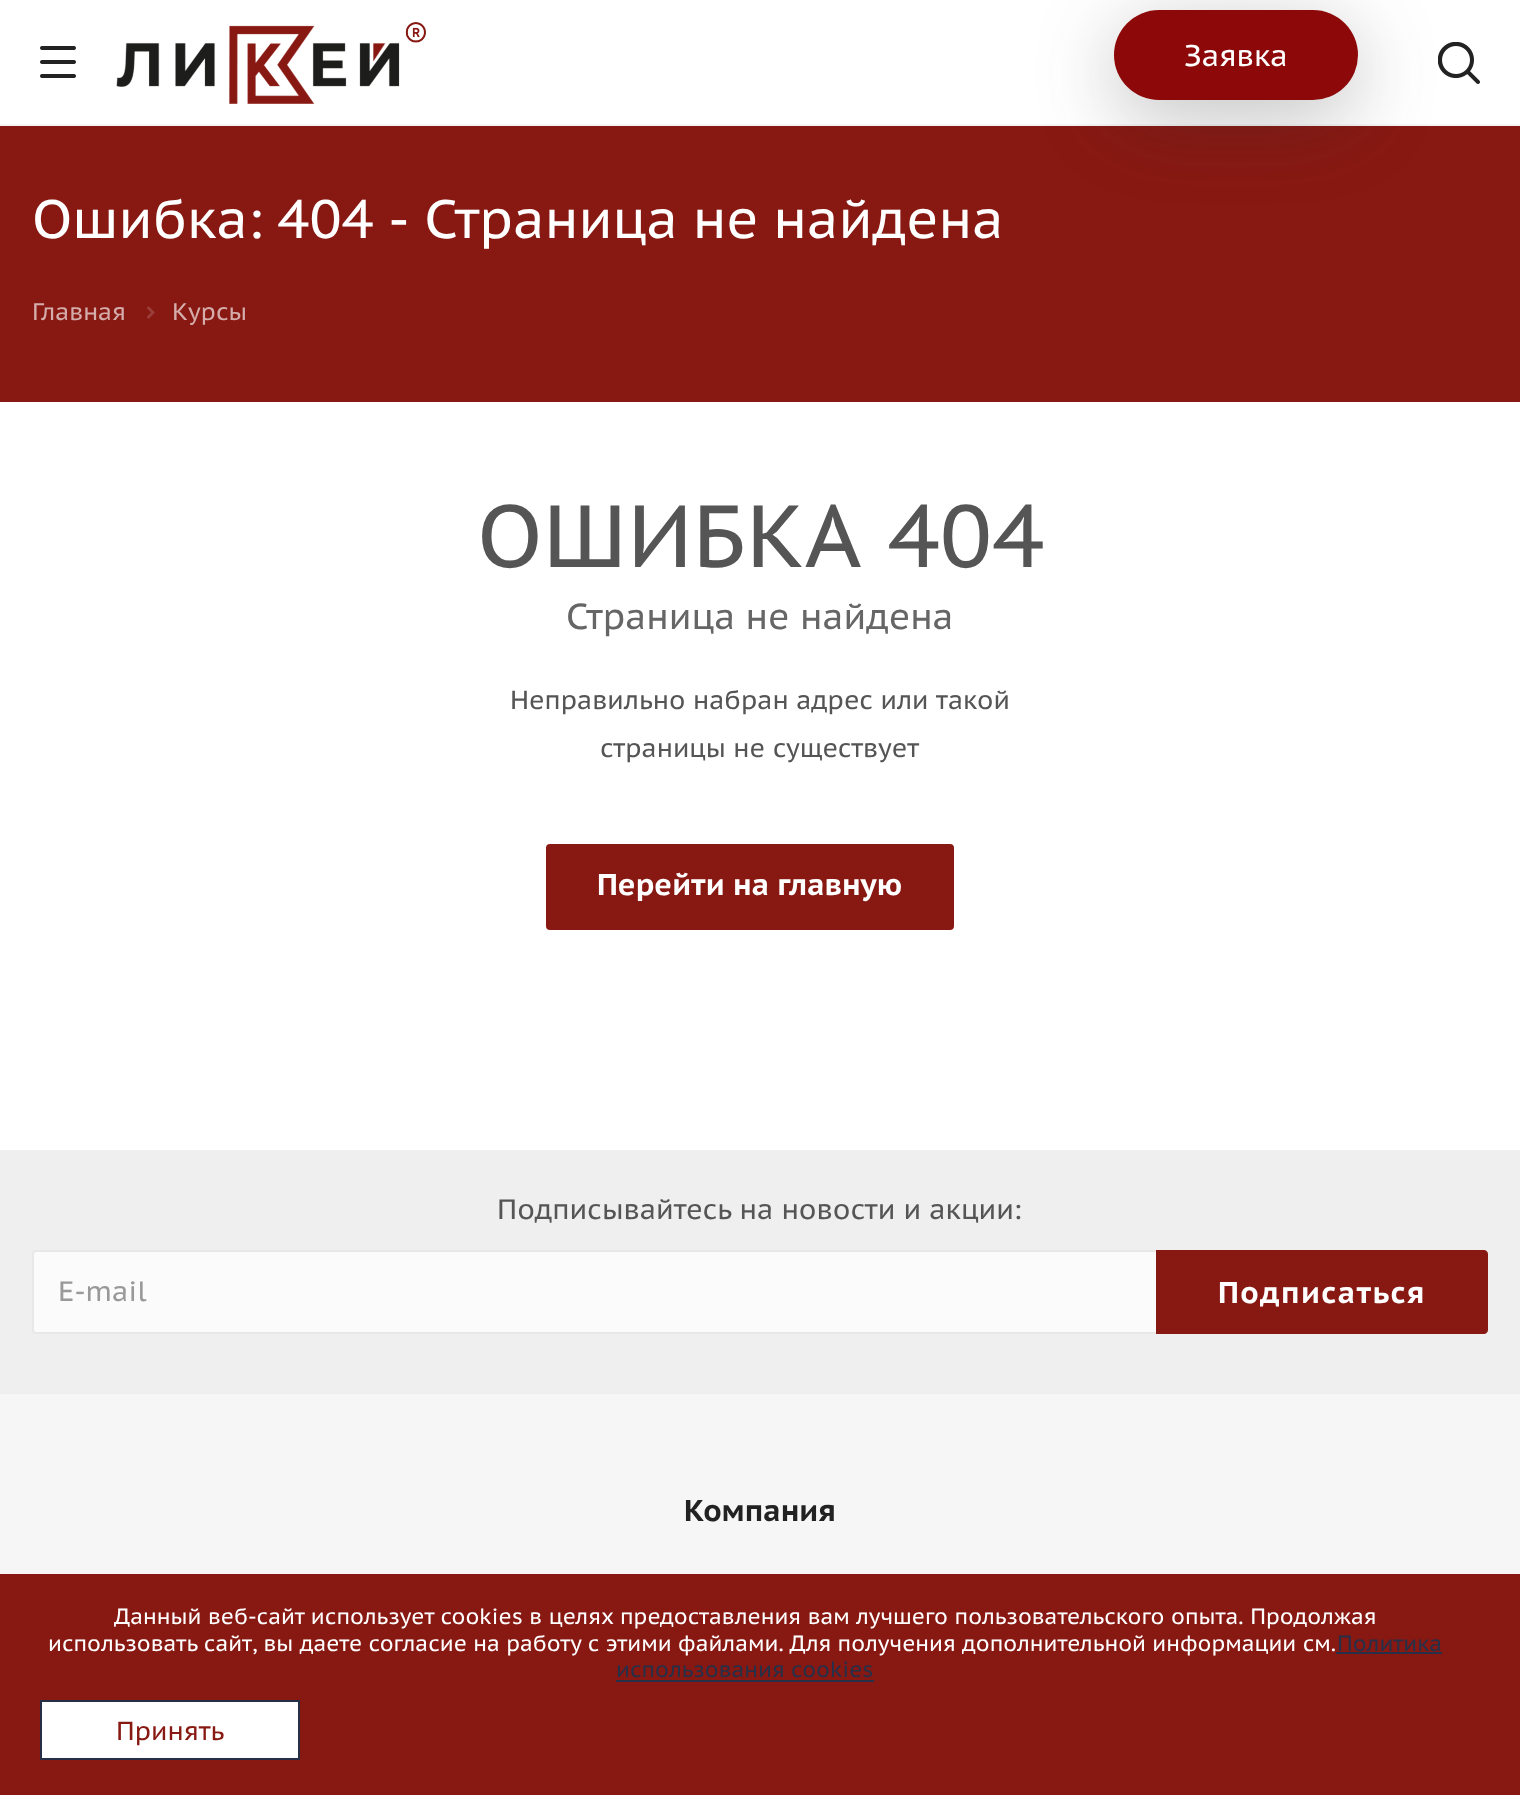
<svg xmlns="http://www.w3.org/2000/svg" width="1520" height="1795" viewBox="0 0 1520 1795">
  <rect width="100%" height="100%" fill="rgb(255,255,255)"/>
  <rect x="0" y="124" width="1520" height="2" fill="rgb(245,245,245)"/>
  <image x="40" y="46" width="36" height="32" href="pic1.png"/>
  <image x="116" y="22" width="310" height="82" href="pic2.png"/>
  <rect x="0" y="126" width="1520" height="276" fill="rgb(136,24,18)"/>
  <rect x="1114" y="28" width="244" height="90" rx="45" fill="rgba(50,50,50,0.3)" filter="blur(40px)"/>
  <rect x="1114" y="10" width="244" height="90" rx="45" fill="rgb(141,9,9)"/>
  <text x="1184" y="66" font-family="PT Sans Caption" font-size="30" fill="rgb(255,255,255)">Заявка</text>
  <image x="1438" y="42" width="42" height="42" href="pic3.png"/>
  <text x="32" y="238" word-spacing="-1" font-family="PT Sans Caption" font-size="54" fill="rgb(255,255,255)">Ошибка: 404 - Страница не найдена</text>
  <text x="32" y="320" font-family="PT Sans Caption" font-size="24" fill="rgb(212,172,170)">Главная</text>
  <image x="147" y="306" width="8" height="13" href="pic4.png"/>
  <text x="172" y="320" font-family="PT Sans Caption" font-size="24" fill="rgb(212,172,170)">Курсы</text>
  <text x="477" y="567" word-spacing="4" font-family="PT Sans Caption" font-size="88" fill="rgb(85,85,85)">ОШИБКА 404</text>
  <text x="566" y="629" font-family="PT Sans Caption" font-size="36" fill="rgb(102,102,102)">Страница не найдена</text>
  <g font-family="PT Sans Caption" font-size="26" fill="rgb(85,85,85)">
    <text x="510" y="709">Неправильно набран адрес или такой</text>
    <text x="600" y="757">страницы не существует</text>
  </g>
  <rect x="547" y="845" width="406" height="84" rx="3" fill="rgb(136,24,18)" stroke="rgb(136,24,18)" stroke-width="2"/>
  <text x="597" y="895" font-family="PT Sans Caption" font-size="30" font-weight="bold" fill="rgb(255,255,255)">Перейти на главную</text>
  <rect x="0" y="1394" width="1520" height="180" fill="rgb(246,246,246)"/>
  <rect x="0" y="1150" width="1520" height="244" fill="rgb(239,239,240)"/>
  <text x="497" y="1219" font-family="PT Sans Caption" font-size="28" fill="rgb(85,85,85)">Подписывайтесь на новости и акции:</text>
  <rect x="33" y="1251" width="1454" height="82" rx="3" fill="rgb(251,251,251)" stroke="rgb(232,232,232)" stroke-width="2"/>
  <text x="58" y="1301" font-family="PT Sans Caption" font-size="28" fill="rgb(153,153,153)">E-mail</text>
  <path d="M1157 1251H1484C1485.5 1251 1487 1252.5 1487 1254V1330C1487 1331.5 1485.5 1333 1484 1333H1157Z" fill="rgb(136,24,18)" stroke="rgb(136,24,18)" stroke-width="2"/>
  <text x="1218" y="1303" font-family="PT Sans Caption" font-size="30" font-weight="bold" letter-spacing="1.4" fill="rgb(255,255,255)">Подписаться</text>
  <text x="684" y="1521" font-family="PT Sans Caption" font-size="30" font-weight="bold" fill="rgb(34,34,34)">Компания</text>
  <rect x="0" y="1574" width="1520" height="221" fill="rgb(136,24,18)"/>
  <g font-family="PT Sans Caption" font-size="22" fill="rgb(255,255,255)">
    <text x="114" y="1624" word-spacing="0.25">Данный веб-сайт использует cookies в целях предоставления вам лучшего пользовательского опыта. Продолжая</text>
    <text x="48" y="1651">использовать сайт, вы даете согласие на работу с этими файлами. Для получения дополнительной информации см.</text>
  </g>
  <text x="1337" y="1651" font-family="PT Sans Caption" font-size="22" fill="rgb(38,48,73)">Политика</text>
  <rect x="1336" y="1652" width="106" height="2" fill="rgb(38,48,73)"/>
  <text x="616" y="1677" font-family="PT Sans Caption" font-size="22" fill="rgb(38,48,73)">использования cookies</text>
  <rect x="616" y="1680" width="258" height="2" fill="rgb(38,48,73)"/>
  <rect x="41" y="1701" width="258" height="58" fill="rgb(255,255,255)" stroke="rgb(38,48,73)" stroke-width="2"/>
  <text x="116" y="1740" font-family="PT Sans Caption" font-size="26" fill="rgb(136,24,18)">Принять</text>
</svg>
